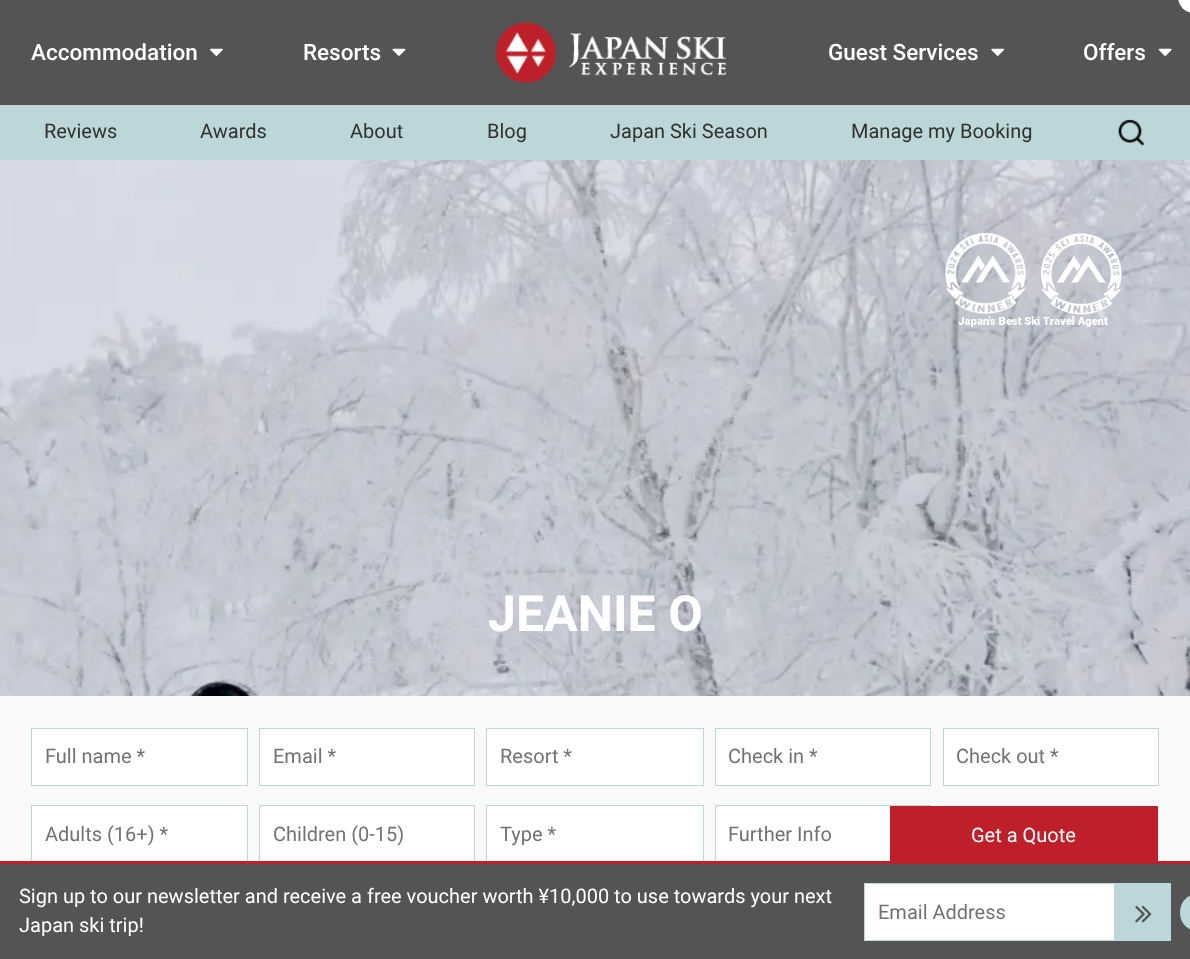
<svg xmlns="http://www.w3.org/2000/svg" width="1190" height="959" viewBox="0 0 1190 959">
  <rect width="100%" height="100%" fill="rgb(84,84,84)"/>
  <rect x="1178" y="-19" width="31" height="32" rx="18.5" fill="rgb(255,255,255)"/>
  <text x="31" y="60" font-family="Roboto" font-size="22.5" font-weight="500" fill="rgb(255,255,255)">Accommodation</text>
  <image x="210" y="48" width="13" height="8" href="pic1.png"/>
  <text x="303" y="60" font-family="Roboto" font-size="22.5" font-weight="500" fill="rgb(255,255,255)">Resorts</text>
  <image x="392" y="48" width="14" height="8" href="pic2.png"/>
  <image x="496" y="22" width="231" height="61" href="pic3.png"/>
  <text x="828" y="60" font-family="Roboto" font-size="22.5" font-weight="500" fill="rgb(255,255,255)">Guest Services</text>
  <image x="991" y="48" width="14" height="8" href="pic4.png"/>
  <text x="1083" y="60" font-family="Roboto" font-size="22.5" font-weight="500" fill="rgb(255,255,255)">Offers</text>
  <image x="1158" y="48" width="14" height="8" href="pic5.png"/>
  <rect x="0" y="105" width="1190" height="55" fill="rgb(188,214,217)"/>
  <g font-family="Roboto" font-size="20" fill="rgb(48,50,47)">
    <text x="44" y="138">Reviews</text>
    <text x="200" y="138">Awards</text>
    <text x="350" y="138">About</text>
    <text x="487" y="138">Blog</text>
    <text x="610" y="138">Japan Ski Season</text>
    <text x="851" y="138">Manage my Booking</text>
  </g>
  <image x="1118" y="119" width="26" height="27" href="pic6.png"/>
  <image x="0" y="160" width="1190" height="536" href="pic7.png"/>
  <image x="945" y="232" width="177" height="95" href="pic8.png"/>
  <text x="488" y="631" font-family="Roboto" font-size="50" font-weight="bold" fill="rgb(255,255,255)">JEANIE O</text>
  <rect x="0" y="696" width="1190" height="165" fill="rgb(249,249,249)"/>
  <rect x="31.5" y="728.5" width="216" height="57" fill="rgb(255,255,255)" stroke="rgb(188,214,217)"/>
  <text x="45" y="763" font-family="Roboto" font-size="20" fill="rgb(115,114,114)">Full name *</text>
  <rect x="259.5" y="728.5" width="215" height="57" fill="rgb(255,255,255)" stroke="rgb(188,214,217)"/>
  <text x="273" y="763" font-family="Roboto" font-size="20" fill="rgb(115,114,114)">Email *</text>
  <rect x="486.5" y="728.5" width="217" height="57" fill="rgb(255,255,255)" stroke="rgb(188,214,217)"/>
  <text x="500" y="763" font-family="Roboto" font-size="20" fill="rgb(115,114,114)">Resort *</text>
  <rect x="715.5" y="728.5" width="215" height="57" fill="rgb(255,255,255)" stroke="rgb(188,214,217)"/>
  <text x="728" y="763" font-family="Roboto" font-size="20" fill="rgb(115,114,114)">Check in *</text>
  <rect x="943.5" y="728.5" width="215" height="57" fill="rgb(255,255,255)" stroke="rgb(188,214,217)"/>
  <text x="956" y="763" font-family="Roboto" font-size="20" fill="rgb(115,114,114)">Check out *</text>
  <rect x="32" y="806" width="215" height="55" fill="rgb(255,255,255)"/>
  <rect x="31.5" y="805.5" width="216" height="58" fill="none" stroke="rgb(188,214,217)"/>
  <text x="45" y="841" font-family="Roboto" font-size="20" fill="rgb(115,114,114)">Adults (16+) *</text>
  <rect x="260" y="806" width="214" height="55" fill="rgb(255,255,255)"/>
  <rect x="259.5" y="805.5" width="215" height="58" fill="none" stroke="rgb(188,214,217)"/>
  <text x="273" y="841" font-family="Roboto" font-size="20" fill="rgb(115,114,114)">Children (0-15)</text>
  <rect x="487" y="806" width="216" height="55" fill="rgb(255,255,255)"/>
  <rect x="486.5" y="805.5" width="217" height="58" fill="none" stroke="rgb(188,214,217)"/>
  <text x="500" y="841" font-family="Roboto" font-size="20" fill="rgb(115,114,114)">Type *</text>
  <rect x="716" y="806" width="174" height="55" fill="rgb(255,255,255)"/>
  <rect x="715.5" y="805.5" width="215" height="58" fill="none" stroke="rgb(188,214,217)"/>
  <text x="728" y="841" font-family="Roboto" font-size="20" fill="rgb(115,114,114)">Further Info</text>
  <rect x="890" y="806" width="268" height="55" fill="rgb(190,32,41)"/>
  <text x="971" y="842" font-family="Roboto" font-size="20" fill="rgb(255,255,255)">Get a Quote</text>
  <rect x="0" y="861" width="1190" height="3" fill="rgb(190,32,41)"/>
  <g font-family="Roboto" font-size="20" fill="rgb(255,255,255)">
    <text>
      <tspan x="19" y="903">Sign up to our newsletter and receive a free voucher worth ¥10,000 to use towards your next</tspan>
      <tspan x="19" y="932">Japan ski trip!</tspan>
    </text>
  </g>
  <rect x="864.5" y="883.5" width="250" height="57" fill="rgb(255,255,255)" stroke="rgb(188,214,217)"/>
  <text x="878" y="919" font-family="Roboto" font-size="20" fill="rgb(115,114,114)">Email Address</text>
  <rect x="1115" y="883" width="56" height="58" fill="rgb(188,214,217)"/>
  <image x="1135" y="905" width="17" height="18" href="pic9.png"/>
  <rect x="1180" y="895" width="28" height="35" rx="17.5" fill="rgb(188,214,217)"/>
</svg>
